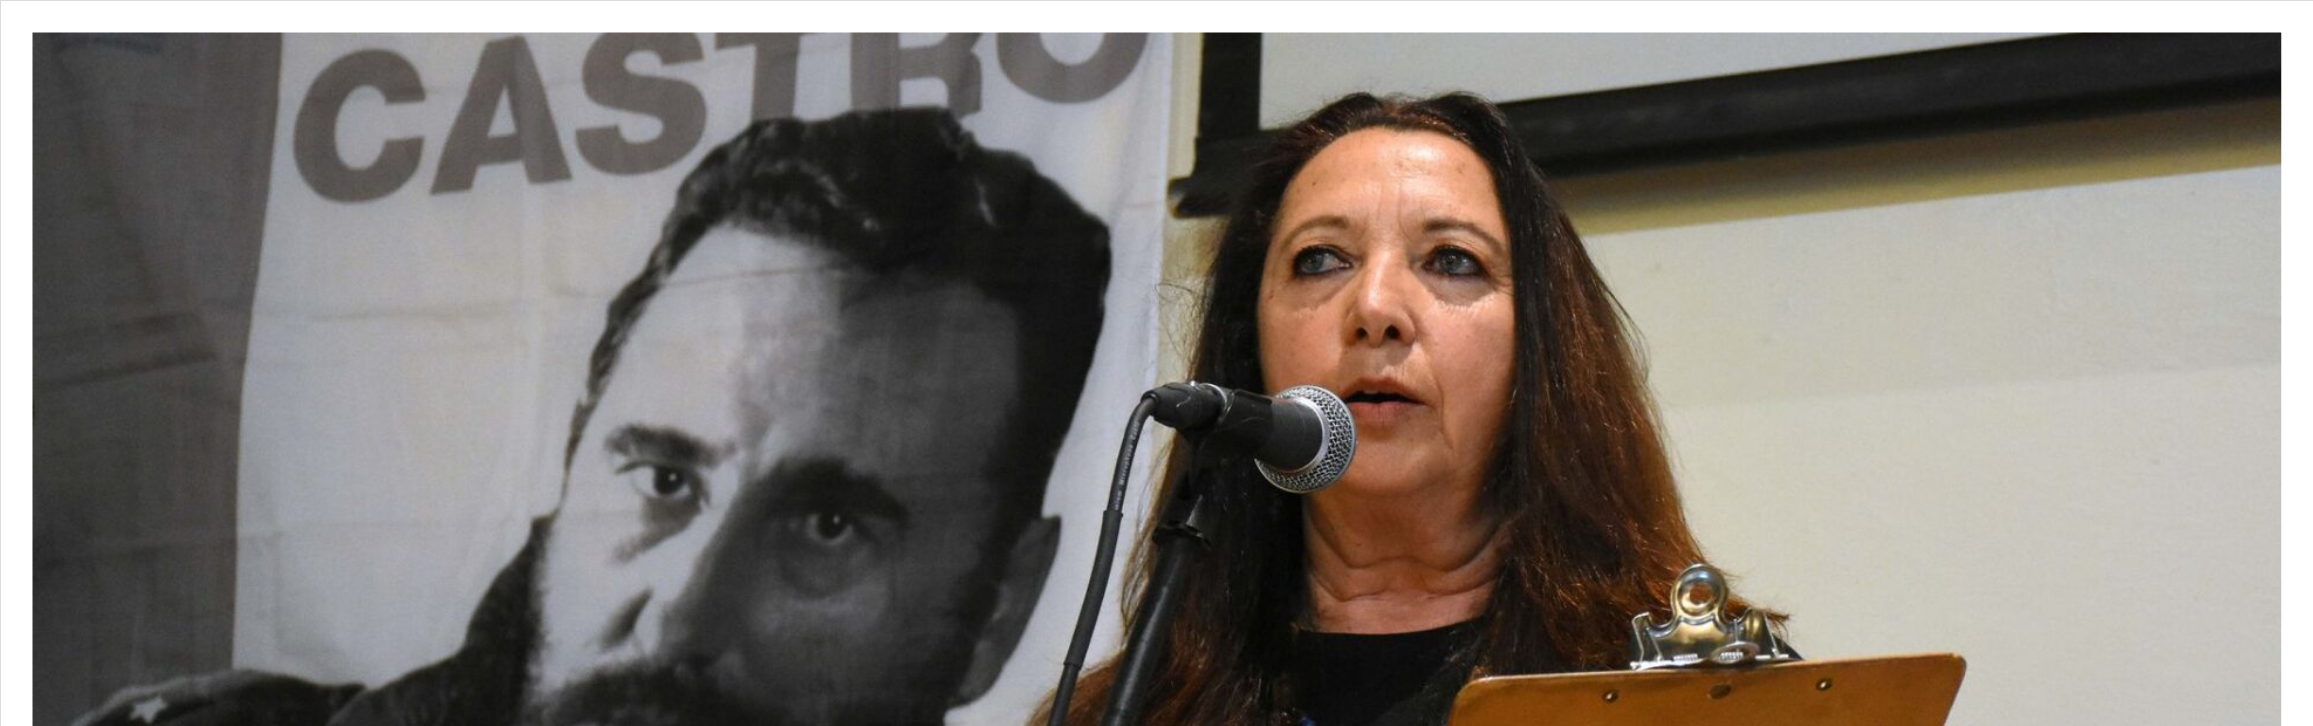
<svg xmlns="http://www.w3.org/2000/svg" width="2313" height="726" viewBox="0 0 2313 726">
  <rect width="100%" height="100%" fill="rgb(255,255,255)"/>
  <rect x="0.5" y="0.5" width="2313" height="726" fill="none" stroke="rgb(220,220,222)"/>
  <image x="32" y="32" width="2250" height="694" href="pic1.png"/>
</svg>
